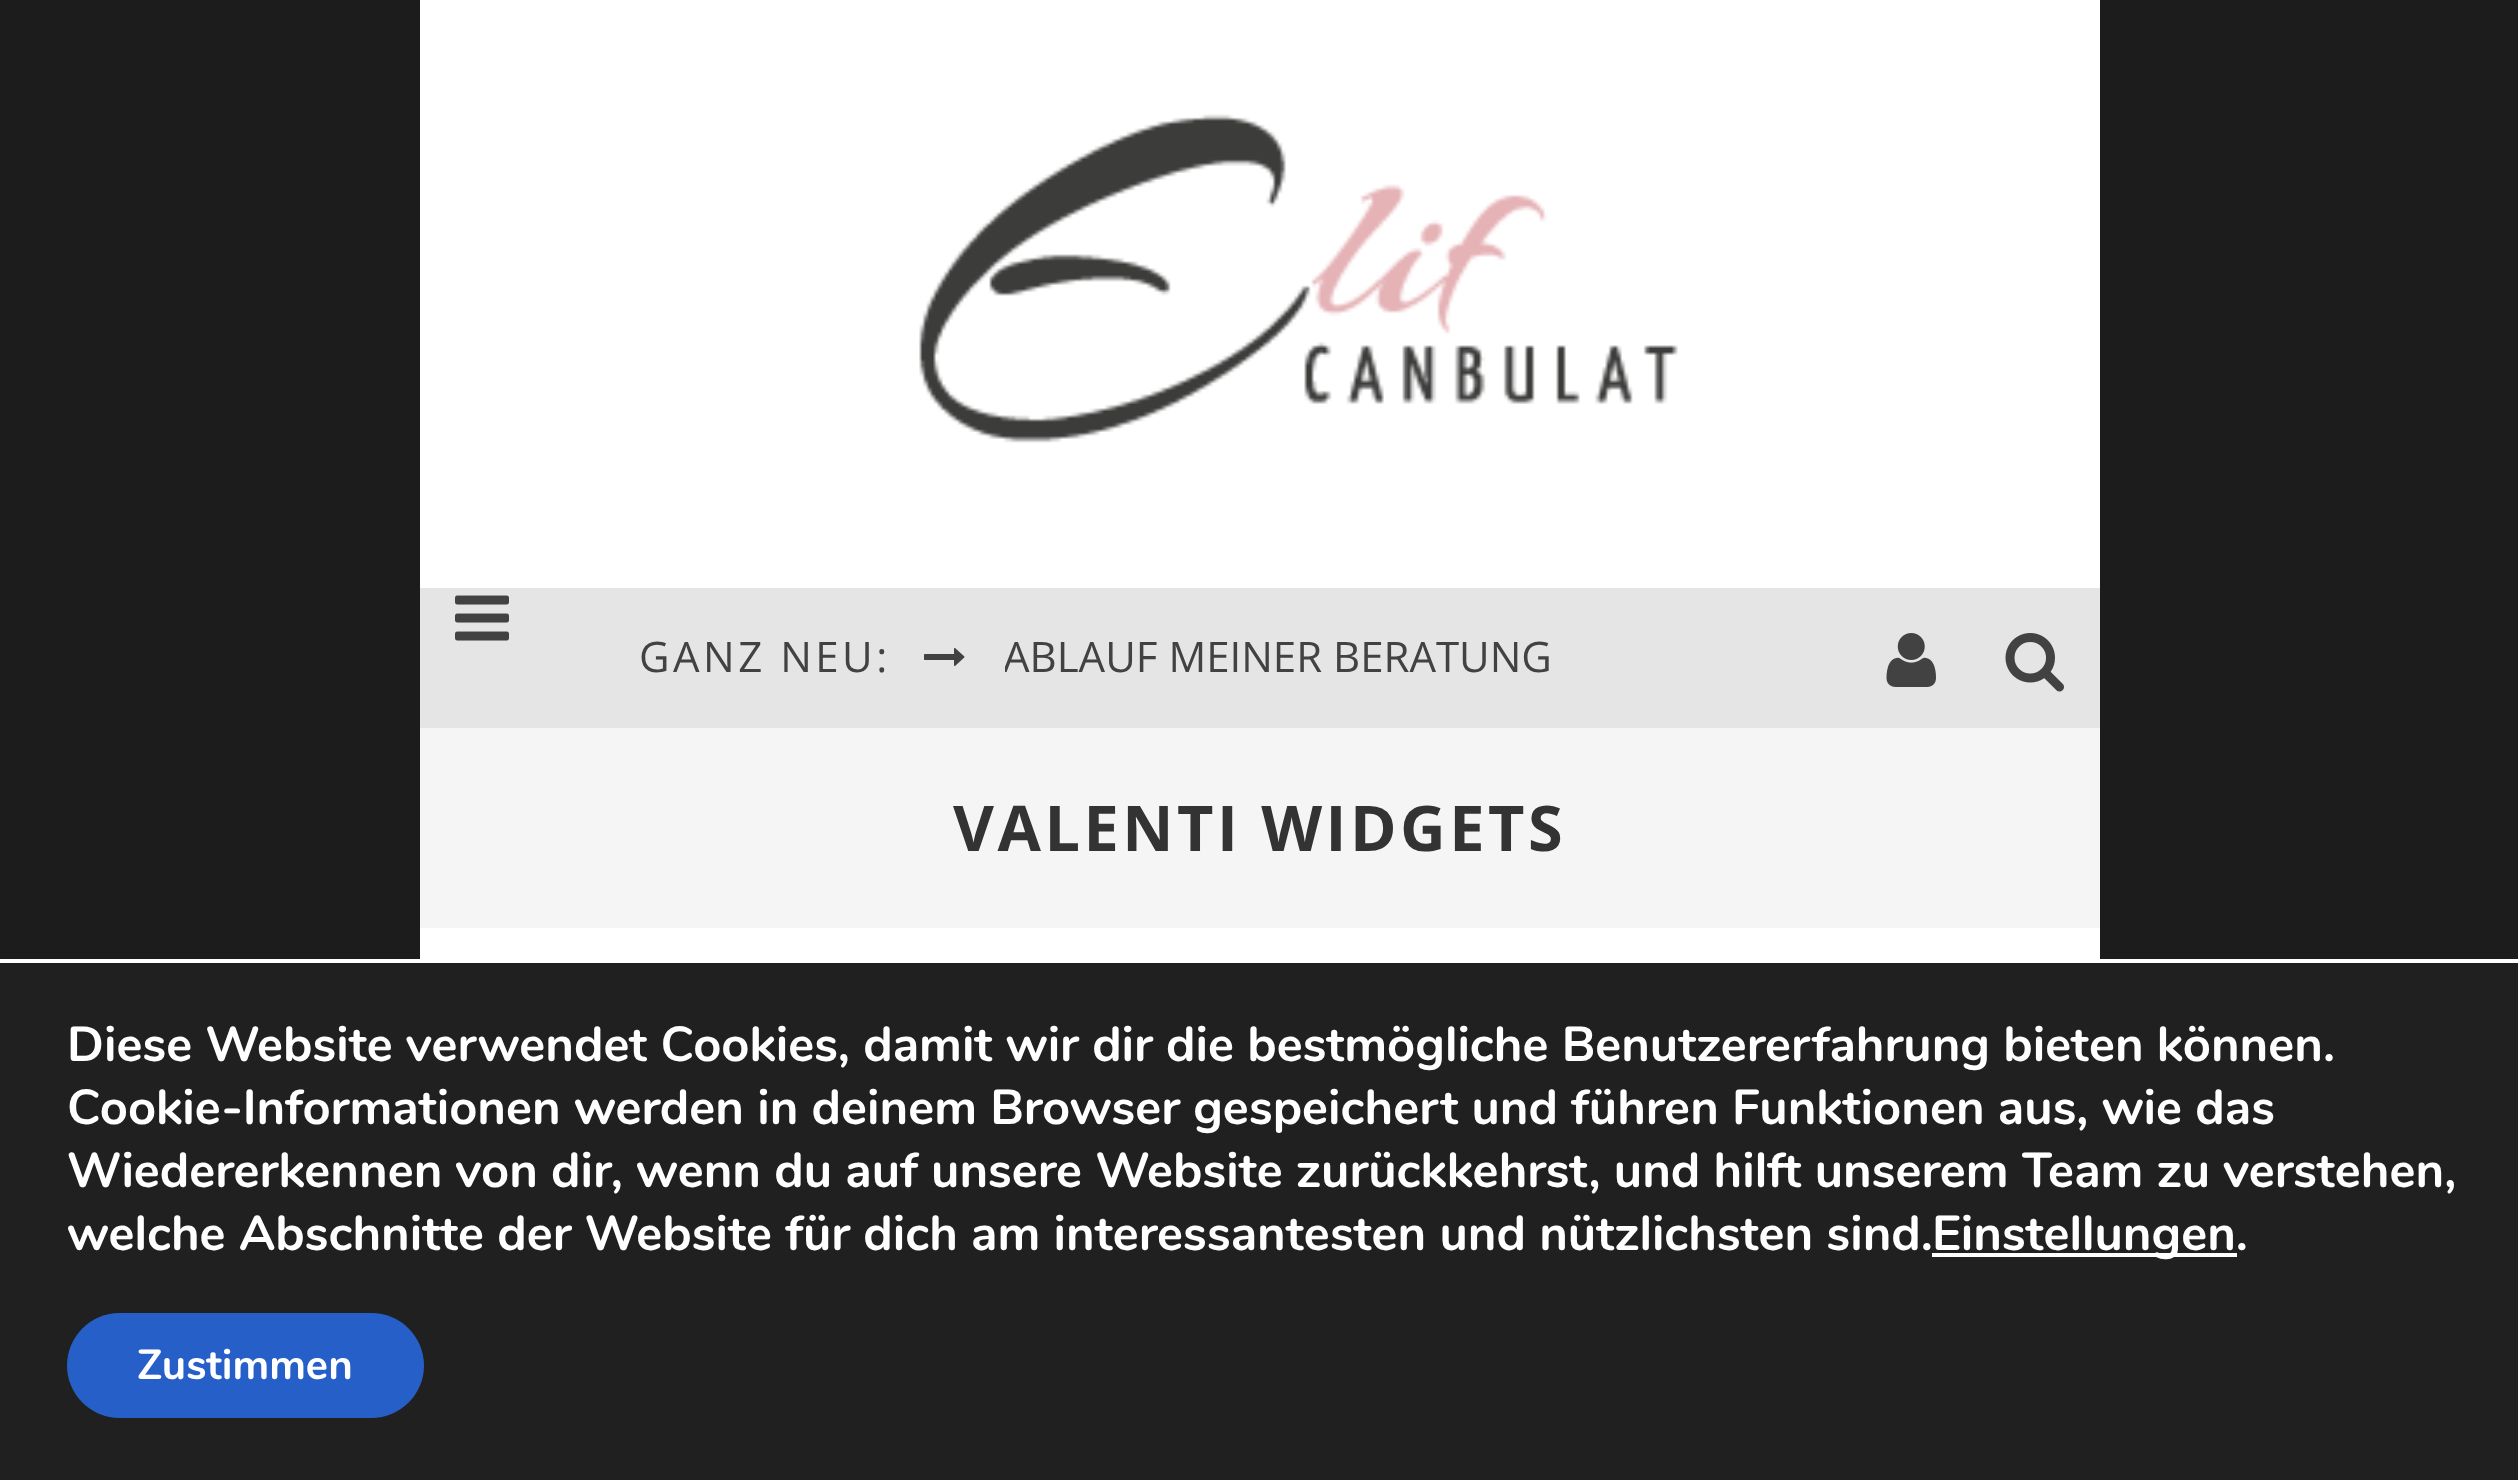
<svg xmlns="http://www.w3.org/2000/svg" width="2518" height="1480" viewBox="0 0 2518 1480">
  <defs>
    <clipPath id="clip1"><rect x="1005" y="588" width="742" height="140"/></clipPath>
  </defs>
  <rect width="100%" height="100%" fill="rgb(28,28,28)"/>
  <rect x="420" y="0" width="1680" height="588" fill="rgb(255,255,255)"/>
  <image x="919" y="114" width="759" height="329" href="pic1.png"/>
  <rect x="420" y="588" width="1680" height="140" fill="rgb(229,229,229)"/>
  <image x="455" y="595" width="54" height="46" href="pic2.png"/>
  <text x="639" y="672" font-family="Open Sans" font-size="42" letter-spacing="3.5" fill="rgb(66,66,66)">GANZ NEU:</text>
  <image x="924" y="648" width="41" height="18" href="pic3.png"/>
  <g clip-path="url(#clip1)">
    <text x="1003" y="672" font-family="Open Sans" font-size="42" fill="rgb(66,66,66)">ABLAUF MEINER BERATUNG</text>
  </g>
  <image x="1886" y="633" width="50" height="54" href="pic4.png"/>
  <image x="2005" y="633" width="59" height="59" href="pic5.png"/>
  <rect x="420" y="928" width="1680" height="31" fill="rgb(255,255,255)"/>
  <rect x="420" y="728" width="1680" height="200" fill="rgb(245,245,245)"/>
  <text x="953" y="851" font-family="Open Sans" font-size="63" font-weight="bold" letter-spacing="3.5" fill="rgb(51,51,51)">VALENTI WIDGETS</text>
  <rect x="0" y="963" width="2518" height="517" fill="rgb(32,32,32)"/>
  <rect x="0" y="959" width="2518" height="4" fill="rgb(255,255,255)"/>
  <g font-family="Nunito" font-size="49" font-weight="bold" fill="rgb(255,255,255)">
    <text>
      <tspan x="67" y="1061">Diese Website verwendet Cookies, damit wir dir die bestmögliche Benutzererfahrung bieten können.</tspan>
      <tspan x="67" y="1124">Cookie-Informationen werden in deinem Browser gespeichert und führen Funktionen aus, wie das</tspan>
      <tspan x="67" y="1187">Wiedererkennen von dir, wenn du auf unsere Website zurückkehrst, und hilft unserem Team zu verstehen,</tspan>
      <tspan x="67" y="1250">welche Abschnitte der Website für dich am interessantesten und nützlichsten sind.</tspan>
    </text>
  </g>
  <rect x="1932" y="1253" width="305" height="4" fill="rgb(255,255,255)"/>
  <text x="1932" y="1250" font-family="Nunito" font-size="49" font-weight="bold" fill="rgb(255,255,255)">Einstellungen.</text>
  <rect x="67" y="1313" width="357" height="105" rx="52.5" fill="rgb(39,95,200)"/>
  <text x="137" y="1379" font-family="Nunito" font-size="42" font-weight="bold" fill="rgb(255,255,255)">Zustimmen</text>
</svg>
